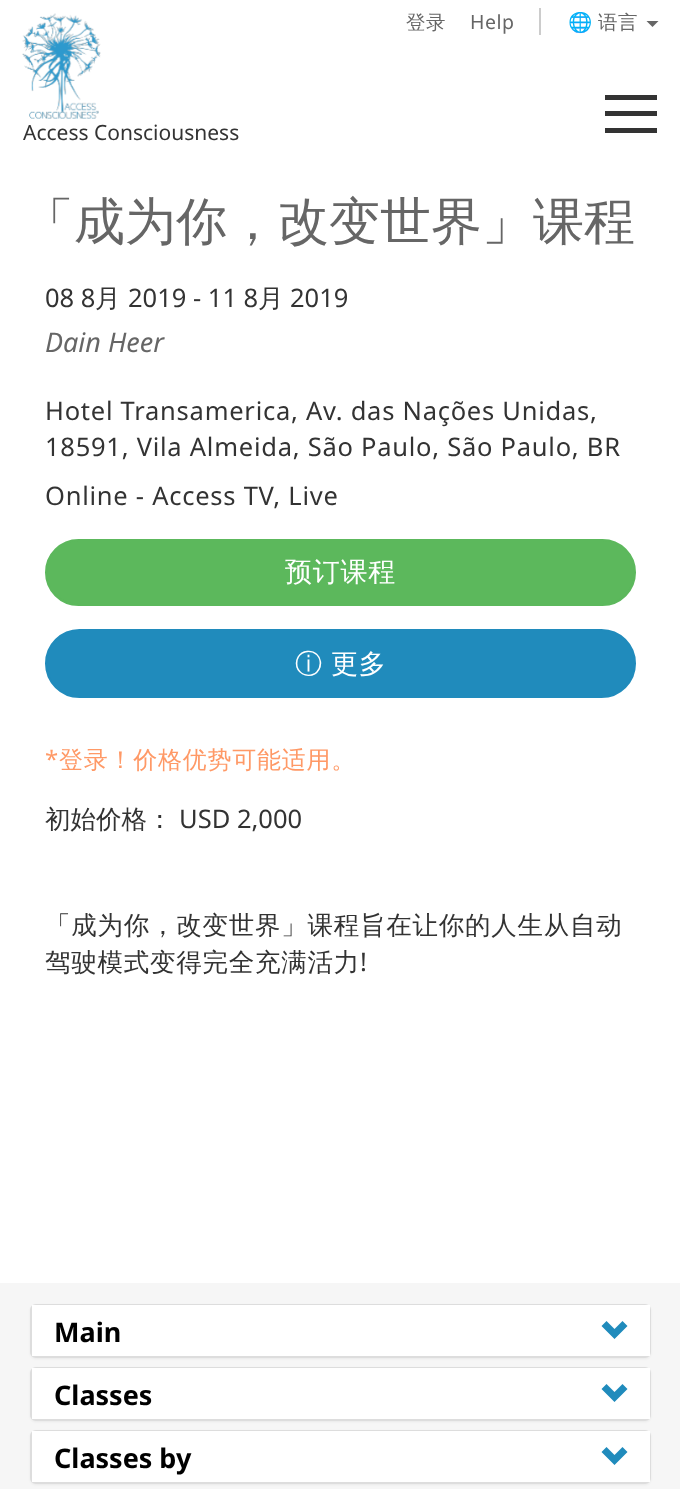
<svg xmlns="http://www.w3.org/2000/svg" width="680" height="1489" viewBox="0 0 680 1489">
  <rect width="100%" height="100%" fill="rgb(255,255,255)"/>
  <text x="406" y="29" font-family="WenQuanYi Zen Hei" font-size="19.5" font-weight="500" letter-spacing="0.5" fill="rgb(102,102,102)">登录</text>
  <text x="470" y="29" font-family="Noto Sans" font-size="19.5" letter-spacing="0.5" fill="rgb(102,102,102)">Help</text>
  <rect x="539" y="8" width="2" height="27" fill="rgb(204,204,204)"/>
  <text x="568" y="29" font-family="Noto Color Emoji" font-size="19.5" letter-spacing="0.5" fill="rgb(102,102,102)">🌐</text>
  <text x="598" y="29" font-family="WenQuanYi Zen Hei" font-size="19.5" font-weight="500" letter-spacing="0.5" fill="rgb(102,102,102)">语言</text>
  <path d="M646.5 21H658.5L652.5 27Z" fill="rgb(102,102,102)"/>
  <image x="22" y="13" width="79" height="106" href="pic1.png"/>
  <rect x="605" y="95" width="52" height="5" fill="rgb(51,51,51)"/>
  <rect x="605" y="111" width="52" height="5" fill="rgb(51,51,51)"/>
  <rect x="605" y="128" width="52" height="5" fill="rgb(51,51,51)"/>
  <text x="23" y="140" font-family="Noto Sans" font-size="21" fill="rgb(51,51,51)">Access Consciousness</text>
  <text x="23" y="239" font-family="WenQuanYi Zen Hei" font-size="51" font-weight="500" fill="rgb(102,102,102)">「成为你，改变世界」课程</text>
  <text x="45" y="307" font-family="Noto Sans" font-size="25.5" fill="rgb(51,51,51)">08 8</text>
  <text x="95" y="307" font-family="WenQuanYi Zen Hei" font-size="25.5" font-weight="500" fill="rgb(51,51,51)">月</text>
  <text x="128" y="307" font-family="Noto Sans" font-size="25.5" fill="rgb(51,51,51)">2019 - 11 8</text>
  <text x="258" y="307" font-family="WenQuanYi Zen Hei" font-size="25.5" font-weight="500" fill="rgb(51,51,51)">月</text>
  <text x="290" y="307" font-family="Noto Sans" font-size="25.5" fill="rgb(51,51,51)">2019</text>
  <text x="45" y="352" font-family="Noto Sans" font-size="27" font-style="italic" fill="rgb(102,102,102)">Dain Heer</text>
  <g font-family="Noto Sans" font-size="25.5" letter-spacing="0.75" fill="rgb(51,51,51)">
    <text>
      <tspan x="45" y="420">Hotel Transamerica, Av. das Nações Unidas,</tspan>
      <tspan x="45" y="456">18591, Vila Almeida, São Paulo, São Paulo, BR</tspan>
      <tspan x="45" y="505">Online - Access TV, Live</tspan>
    </text>
  </g>
  <rect x="46" y="540" width="589" height="65" rx="32.5" fill="rgb(92,184,92)" stroke="rgb(92,184,92)" stroke-width="2"/>
  <text x="285" y="581" font-family="WenQuanYi Zen Hei" font-size="27" font-weight="500" letter-spacing="0.75" fill="rgb(255,255,255)">预订课程</text>
  <rect x="46" y="630" width="589" height="67" rx="33.5" fill="rgb(32,139,188)" stroke="rgb(32,139,188)" stroke-width="2"/>
  <g font-family="WenQuanYi Zen Hei" font-size="27" font-weight="500" letter-spacing="0.75" fill="rgb(255,255,255)">
    <text x="295" y="673">ⓘ</text>
    <text x="331" y="673">更多</text>
  </g>
  <text x="45" y="768" font-family="Noto Sans" font-size="24" letter-spacing="0.75" fill="rgb(255,153,102)">*</text>
  <text x="59" y="768" font-family="WenQuanYi Zen Hei" font-size="24" font-weight="500" letter-spacing="0.75" fill="rgb(255,153,102)">登录！价格优势可能适用。</text>
  <text x="45" y="828" font-family="WenQuanYi Zen Hei" font-size="25.5" font-weight="500" fill="rgb(51,51,51)">初始价格：</text>
  <text x="179" y="828" font-family="Noto Sans" font-size="25.5" fill="rgb(51,51,51)">USD 2,000</text>
  <g font-family="WenQuanYi Zen Hei" font-size="25.5" font-weight="500" letter-spacing="0.75" fill="rgb(51,51,51)">
    <text>
      <tspan x="45" y="934">「成为你，改变世界」课程旨在让你的人生从自动</tspan>
      <tspan x="45" y="971">驾驶模式变得完全充满活力</tspan>
    </text>
  </g>
  <text x="360" y="971" font-family="Noto Sans" font-size="25.5" letter-spacing="0.75" fill="rgb(51,51,51)">!</text>
  <rect x="0" y="1283" width="680" height="206" fill="rgb(246,246,246)"/>
  <rect x="30" y="1305" width="621" height="54" rx="6" fill="rgba(0,0,0,0.05)" filter="blur(1px)"/>
  <rect x="31" y="1305" width="619" height="52" rx="5" fill="none" stroke="rgb(221,221,221)" stroke-width="2"/>
  <rect x="32" y="1305" width="618" height="51" fill="rgb(255,255,255)"/>
  <text x="54" y="1342" font-family="Noto Sans" font-size="27" font-weight="bold" fill="rgb(0,0,0)">Main</text>
  <path d="M601.5 1326L614.5 1339L627.5 1326L622.5 1321L614.5 1329L606.5 1321Z" fill="rgb(32,139,188)"/>
  <rect x="30" y="1368" width="621" height="54" rx="6" fill="rgba(0,0,0,0.05)" filter="blur(1px)"/>
  <rect x="31" y="1368" width="619" height="52" rx="5" fill="none" stroke="rgb(221,221,221)" stroke-width="2"/>
  <rect x="32" y="1368" width="618" height="51" fill="rgb(255,255,255)"/>
  <text x="54" y="1405" font-family="Noto Sans" font-size="27" font-weight="bold" fill="rgb(0,0,0)">Classes</text>
  <path d="M601.5 1389L614.5 1402L627.5 1389L622.5 1384L614.5 1392L606.5 1384Z" fill="rgb(32,139,188)"/>
  <rect x="30" y="1431" width="621" height="54" rx="6" fill="rgba(0,0,0,0.05)" filter="blur(1px)"/>
  <rect x="31" y="1431" width="619" height="52" rx="5" fill="none" stroke="rgb(221,221,221)" stroke-width="2"/>
  <rect x="32" y="1431" width="618" height="51" fill="rgb(255,255,255)"/>
  <text x="54" y="1468" font-family="Noto Sans" font-size="27" font-weight="bold" fill="rgb(0,0,0)">Classes by</text>
  <path d="M601.5 1452L614.5 1465L627.5 1452L622.5 1447L614.5 1455L606.5 1447Z" fill="rgb(32,139,188)"/>
</svg>
